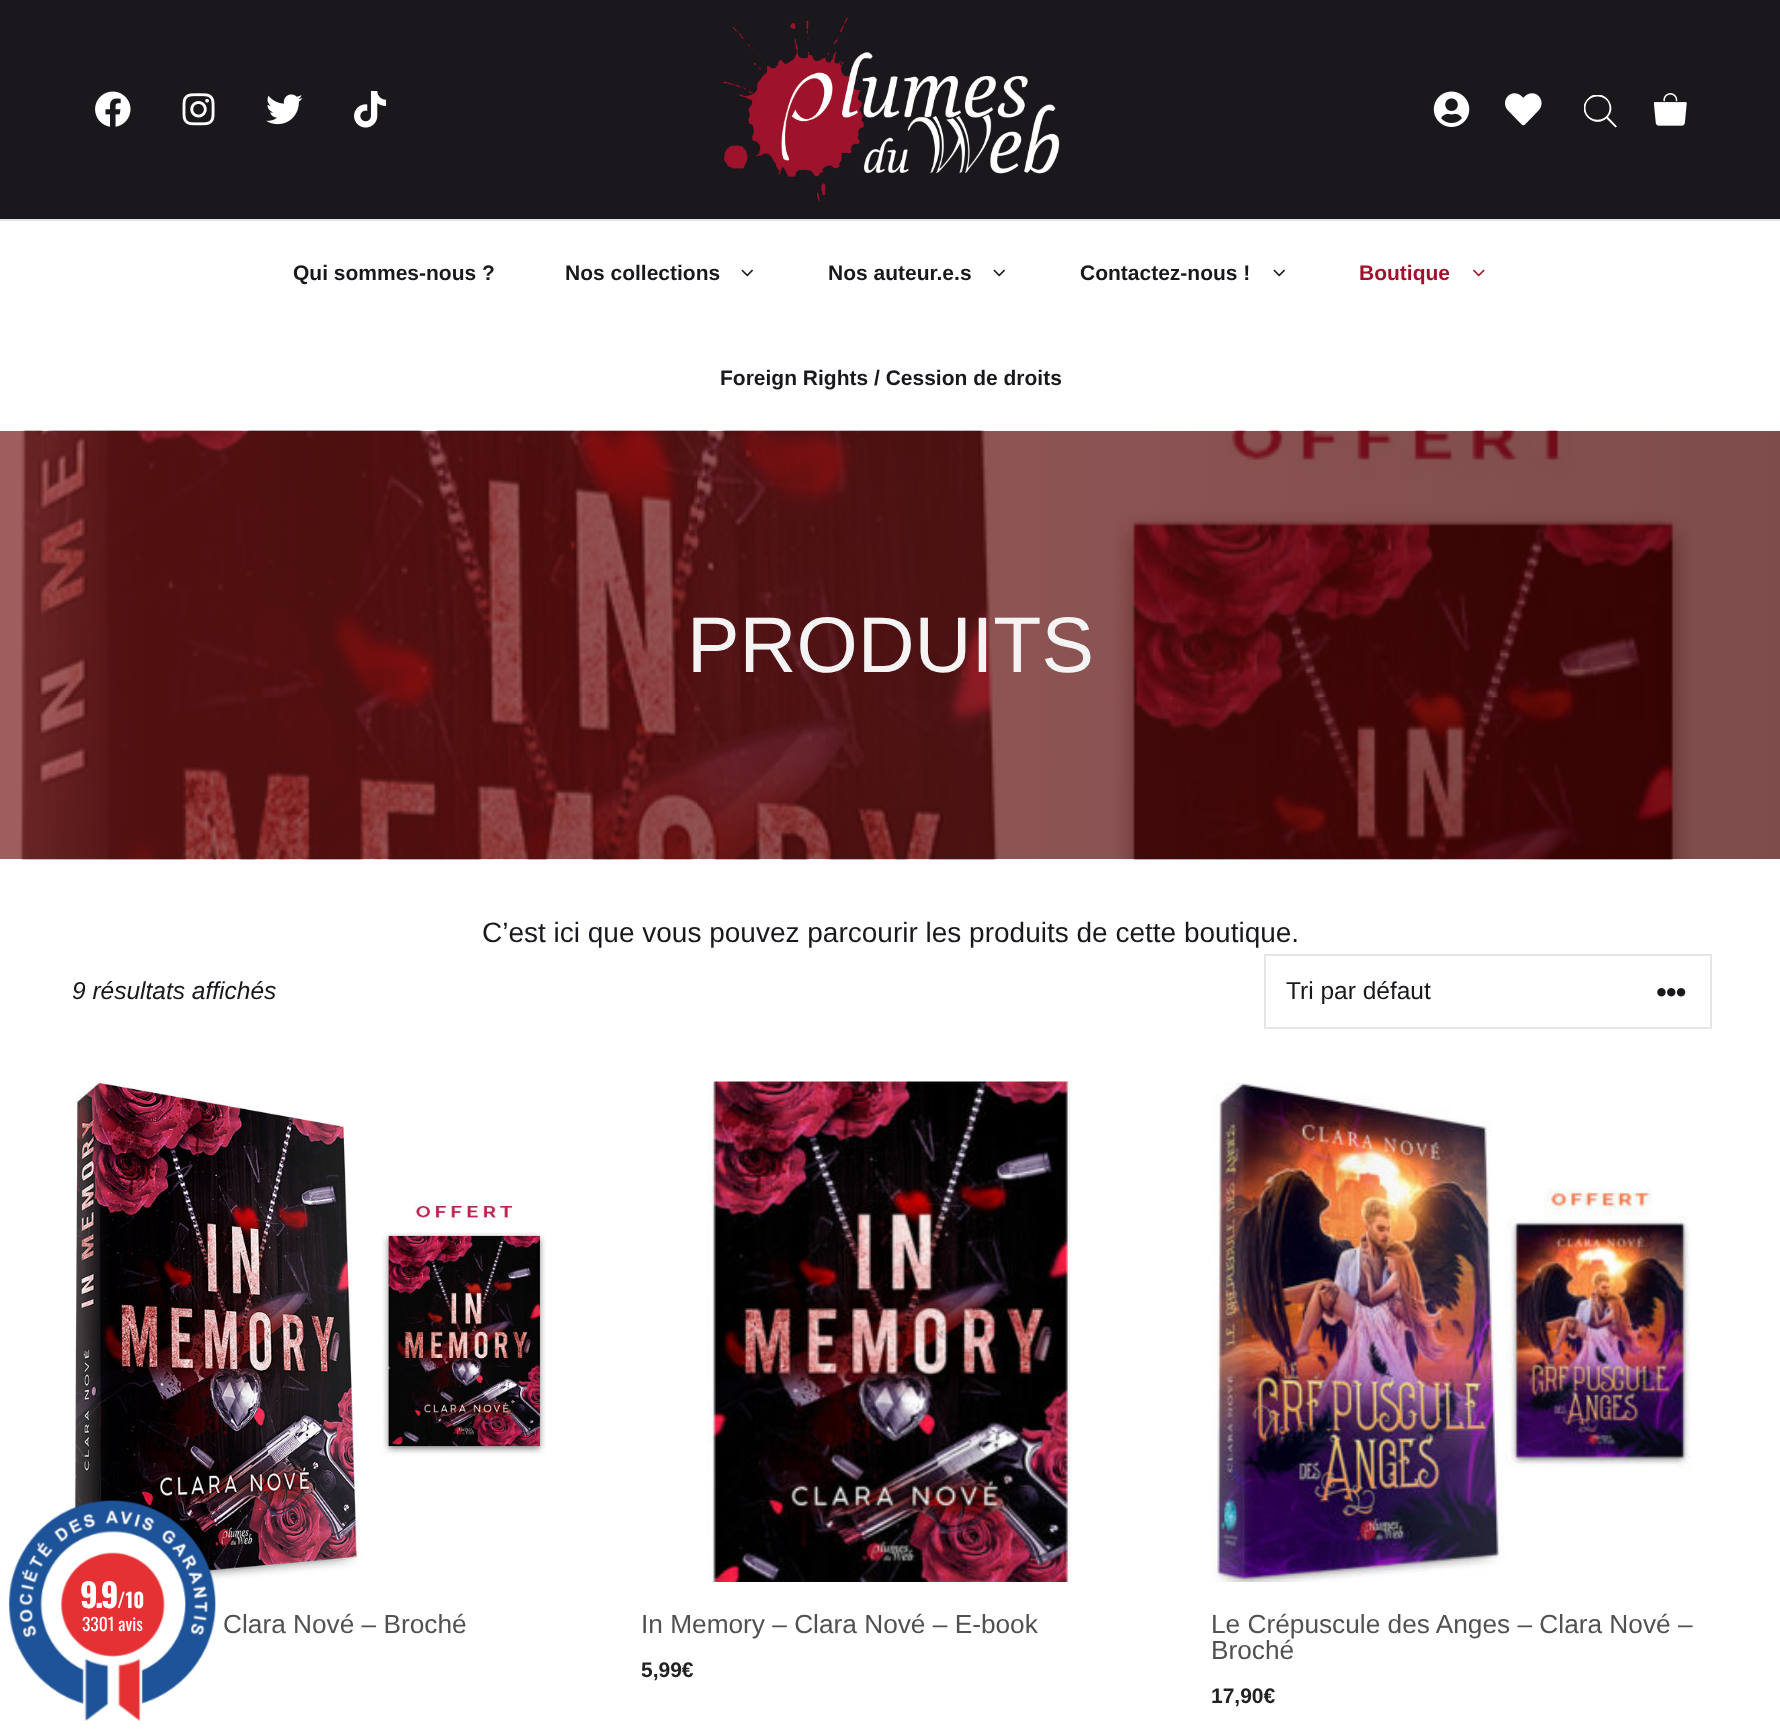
<svg xmlns="http://www.w3.org/2000/svg" width="1780" height="1730" viewBox="0 0 1780 1730">
  <defs>
    <clipPath id="clip1"><rect x="1584" y="95" width="33" height="33"/></clipPath>
    <linearGradient id="g1" gradientUnits="userSpaceOnUse" x1="0" y1="645" x2="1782" y2="645"><stop offset="0" stop-color="rgb(120,26,26)"/><stop offset="1" stop-color="rgb(73,1,1)"/></linearGradient>
  </defs>
  <rect width="100%" height="100%" fill="rgb(255,255,255)"/>
  <rect x="0" y="0" width="1780" height="219" fill="rgb(26,24,28)"/>
  <rect x="0" y="219" width="1780" height="2" fill="rgb(229,229,229)"/>
  <image x="723" y="17" width="337" height="185" href="pic1.png"/>
  <image x="95" y="91" width="36" height="36" href="pic2.png"/>
  <image x="182" y="93" width="33" height="33" href="pic3.png"/>
  <image x="266" y="94" width="37" height="31" href="pic4.png"/>
  <image x="354" y="91" width="33" height="37" href="pic5.png"/>
  <image x="1433" y="91" width="37" height="36" href="pic6.png"/>
  <image x="1505" y="93" width="37" height="33" href="pic7.png"/>
  <g clip-path="url(#clip1)">
    <path d="M1617 126.5L1608 117C1619 104 1600.5 86 1588 98.5C1575 111 1593.5 129.5 1606.5 118.5L1615.5 127.5ZM1585.5 108C1585.5 92.5 1609.5 92.5 1609.5 108C1609.5 123.5 1585.5 123.5 1585.5 108Z" fill="rgb(255,255,255)"/>
  </g>
  <image x="1654" y="93" width="33" height="33" href="pic8.png"/>
  <g font-family="Liberation Sans" font-size="21" font-weight="bold" fill="rgb(26,24,28)">
    <text x="293" y="280">Qui sommes-nous ?</text>
    <text x="565" y="280">Nos collections</text>
  </g>
  <image x="741" y="269" width="12" height="8" href="pic9.png"/>
  <text x="828" y="280" font-family="Liberation Sans" font-size="21" font-weight="bold" fill="rgb(26,24,28)">Nos auteur.e.s</text>
  <image x="993" y="269" width="12" height="8" href="pic9.png"/>
  <text x="1080" y="280" font-family="Liberation Sans" font-size="21" font-weight="bold" fill="rgb(26,24,28)">Contactez-nous !</text>
  <image x="1273" y="269" width="12" height="8" href="pic9.png"/>
  <text x="1359" y="280" font-family="Liberation Sans" font-size="21" font-weight="bold" fill="rgb(160,18,44)">Boutique</text>
  <image x="1473" y="269" width="12" height="8" href="pic10.png"/>
  <text x="720" y="385" font-family="Liberation Sans" font-size="21" font-weight="bold" fill="rgb(26,24,28)">Foreign Rights / Cession de droits</text>
  <rect x="0" y="431" width="1780" height="428" fill="url(#g1)"/>
  <image x="0" y="430" width="1780" height="430" href="pic11.png"/>
  <text x="687" y="672" font-family="Liberation Sans" font-size="78.75" fill="rgb(244,244,244)">PRODUITS</text>
  <text x="482" y="942" font-family="Liberation Sans" font-size="28" fill="rgb(26,24,28)">C’est ici que vous pouvez parcourir les produits de cette boutique.</text>
  <text x="72" y="999" font-family="Liberation Sans" font-size="24.5" font-style="italic" fill="rgb(26,24,28)">9 résultats affichés</text>
  <rect x="1265" y="955" width="446" height="73" fill="none" stroke="rgb(230,230,230)" stroke-width="2"/>
  <text x="1286" y="999" font-family="Liberation Sans" font-size="24.5" fill="rgb(26,24,28)">Tri par défaut</text>
  <image x="1657" y="988" width="29" height="9" href="pic12.png"/>
  <image x="70" y="1081" width="476" height="501" href="pic13.png"/>
  <text x="223" y="1633" font-family="Liberation Sans" font-size="26.25" fill="rgb(81,81,81)">Clara Nové – Broché</text>
  <image x="707" y="1081" width="364" height="501" href="pic14.png"/>
  <text x="641" y="1633" font-family="Liberation Sans" font-size="26.25" fill="rgb(81,81,81)">In Memory – Clara Nové – E-book</text>
  <text x="641" y="1677" font-family="Liberation Sans" font-size="21" font-weight="bold" fill="rgb(34,34,34)">5,99€</text>
  <image x="1211" y="1082" width="481" height="500" href="pic15.png"/>
  <g font-family="Liberation Sans" font-size="26.25" fill="rgb(81,81,81)">
    <text>
      <tspan x="1211" y="1633">Le Crépuscule des Anges – Clara Nové –</tspan>
      <tspan x="1211" y="1659">Broché</tspan>
    </text>
  </g>
  <text x="1211" y="1703" font-family="Liberation Sans" font-size="21" font-weight="bold" fill="rgb(34,34,34)">17,90€</text>
  <image x="8" y="1500" width="208" height="221" href="pic16.png"/>
  <text x="80" y="1608" font-family="Oswald" font-size="33" font-weight="bold" letter-spacing="-2.5" fill="rgb(255,255,255)">9.9</text>
  <text x="117" y="1608" font-family="Oswald" font-size="20" font-weight="bold" fill="rgb(255,255,255)">/10</text>
  <text x="82" y="1631" font-family="Oswald" font-size="17.5" fill="rgb(255,255,255)">3301 avis</text>
</svg>
